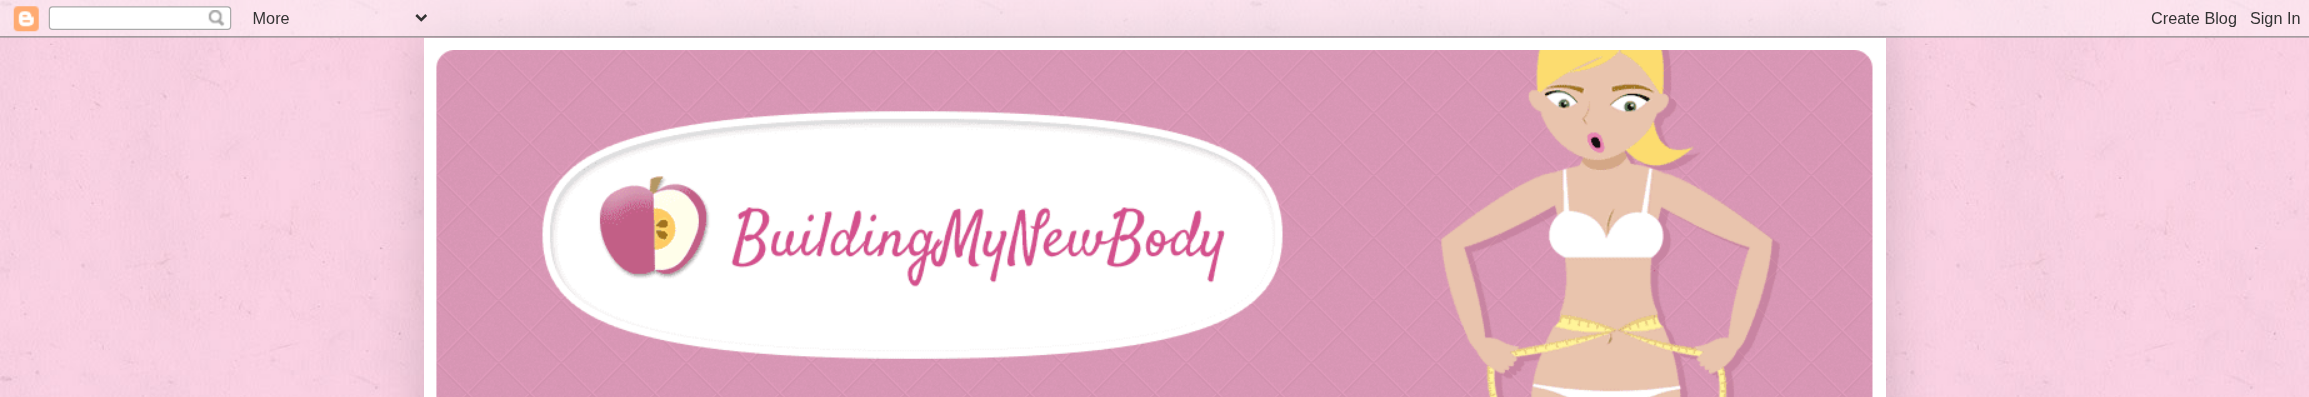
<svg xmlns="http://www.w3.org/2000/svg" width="2309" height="397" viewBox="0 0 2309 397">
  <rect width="100%" height="100%" fill="rgb(255,255,255)"/>
  <image x="0" y="0" width="2309" height="397" href="pic1.png"/>
  <rect x="424" y="38" width="1462" height="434" fill="rgba(0,0,0,0.15)" filter="blur(25px)"/>
  <image x="0" y="0" width="2309" height="38" href="pic2.png"/>
  <rect x="424" y="38" width="1462" height="359" fill="rgb(255,255,255)"/>
  <image x="436" y="50" width="1437" height="347" href="pic3.png"/>
</svg>
